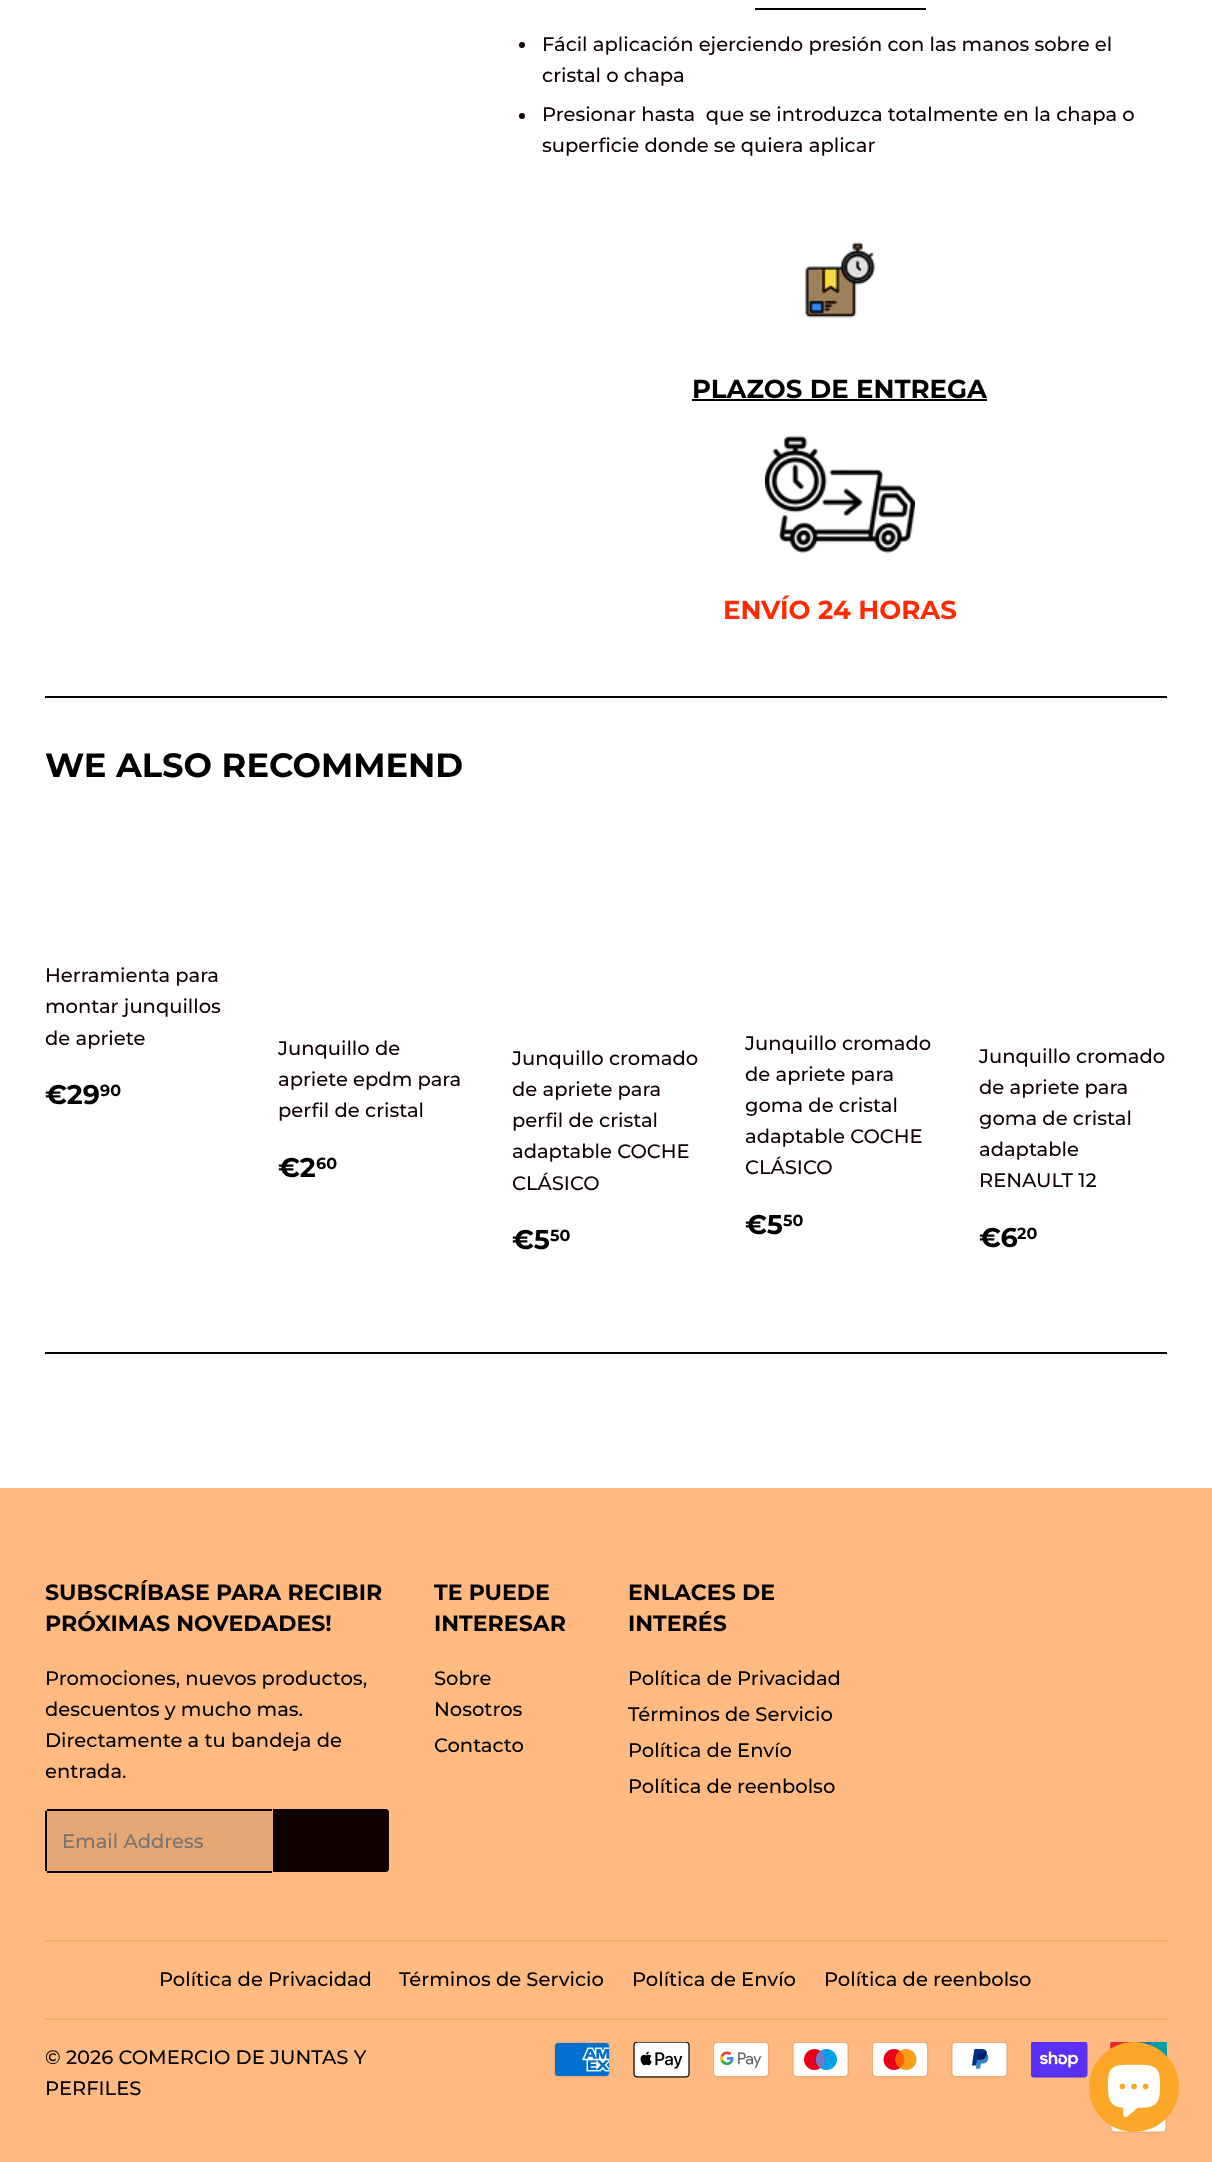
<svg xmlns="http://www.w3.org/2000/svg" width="1212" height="2162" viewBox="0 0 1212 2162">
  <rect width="100%" height="100%" fill="rgb(255,255,255)"/>
  <rect x="755" y="8" width="171" height="2" fill="rgb(0,0,0)"/>
  <circle cx="522" cy="45" r="3" fill="rgb(14,0,0)"/>
  <g font-family="Montserrat" font-size="19.5" font-weight="500" fill="rgb(14,0,0)">
    <text>
      <tspan x="542" y="51">Fácil aplicación ejerciendo presión con las manos sobre el</tspan>
      <tspan x="542" y="82">cristal o chapa</tspan>
    </text>
  </g>
  <circle cx="522" cy="116" r="3" fill="rgb(14,0,0)"/>
  <g font-family="Montserrat" font-size="19.5" font-weight="500" fill="rgb(14,0,0)">
    <text xml:space="preserve"><tspan x="542" y="121">Presionar hasta  que se introduzca totalmente en la chapa o</tspan><tspan x="542" y="152">superficie donde se quiera aplicar</tspan></text>
  </g>
  <image x="805" y="242" width="70" height="76" href="pic1.png"/>
  <text x="692" y="398" font-family="Montserrat" font-size="26" font-weight="bold" fill="rgb(0,0,0)">PLAZOS DE ENTREGA</text>
  <rect x="692" y="399" width="295" height="2" fill="rgb(0,0,0)"/>
  <image x="765" y="435" width="150" height="119" href="pic2.png"/>
  <text x="723" y="619" font-family="Montserrat" font-size="26" font-weight="bold" fill="rgb(255,42,0)">ENVÍO 24 HORAS</text>
  <rect x="45" y="696" width="1122" height="2" fill="rgb(10,1,1)"/>
  <text x="45" y="777" font-family="Montserrat" font-size="33.75" font-weight="bold" fill="rgb(0,0,0)">WE ALSO RECOMMEND</text>
  <g font-family="Montserrat" font-size="19.5" font-weight="500" fill="rgb(14,0,0)">
    <text>
      <tspan x="45" y="982">Herramienta para</tspan>
      <tspan x="45" y="1013">montar junquillos</tspan>
      <tspan x="45" y="1045">de apriete</tspan>
    </text>
  </g>
  <text x="45" y="1104" font-family="Montserrat" font-size="27" font-weight="bold" fill="rgb(0,0,0)">€29</text>
  <text x="100" y="1096" font-family="Montserrat" font-size="16" font-weight="bold" fill="rgb(0,0,0)">90</text>
  <g font-family="Montserrat" font-size="19.5" font-weight="500" fill="rgb(14,0,0)">
    <text>
      <tspan x="278" y="1055">Junquillo de</tspan>
      <tspan x="278" y="1086">apriete epdm para</tspan>
      <tspan x="278" y="1117">perfil de cristal</tspan>
    </text>
  </g>
  <text x="278" y="1177" font-family="Montserrat" font-size="27" font-weight="bold" fill="rgb(0,0,0)">€2</text>
  <text x="316" y="1169" font-family="Montserrat" font-size="16" font-weight="bold" fill="rgb(0,0,0)">60</text>
  <g font-family="Montserrat" font-size="19.5" font-weight="500" fill="rgb(14,0,0)">
    <text>
      <tspan x="512" y="1065">Junquillo cromado</tspan>
      <tspan x="512" y="1096">de apriete para</tspan>
      <tspan x="512" y="1127">perfil de cristal</tspan>
      <tspan x="512" y="1158">adaptable COCHE</tspan>
      <tspan x="512" y="1190">CLÁSICO</tspan>
    </text>
  </g>
  <text x="512" y="1249" font-family="Montserrat" font-size="27" font-weight="bold" fill="rgb(0,0,0)">€5</text>
  <text x="550" y="1241" font-family="Montserrat" font-size="16" font-weight="bold" fill="rgb(0,0,0)">50</text>
  <g font-family="Montserrat" font-size="19.5" font-weight="500" fill="rgb(14,0,0)">
    <text>
      <tspan x="745" y="1050">Junquillo cromado</tspan>
      <tspan x="745" y="1081">de apriete para</tspan>
      <tspan x="745" y="1112">goma de cristal</tspan>
      <tspan x="745" y="1143">adaptable COCHE</tspan>
      <tspan x="745" y="1174">CLÁSICO</tspan>
    </text>
  </g>
  <text x="745" y="1234" font-family="Montserrat" font-size="27" font-weight="bold" fill="rgb(0,0,0)">€5</text>
  <text x="783" y="1226" font-family="Montserrat" font-size="16" font-weight="bold" fill="rgb(0,0,0)">50</text>
  <g font-family="Montserrat" font-size="19.5" font-weight="500" fill="rgb(14,0,0)">
    <text>
      <tspan x="979" y="1063">Junquillo cromado</tspan>
      <tspan x="979" y="1094">de apriete para</tspan>
      <tspan x="979" y="1125">goma de cristal</tspan>
      <tspan x="979" y="1156">adaptable</tspan>
      <tspan x="979" y="1187">RENAULT 12</tspan>
    </text>
  </g>
  <text x="979" y="1247" font-family="Montserrat" font-size="27" font-weight="bold" fill="rgb(0,0,0)">€6</text>
  <text x="1017" y="1239" font-family="Montserrat" font-size="16" font-weight="bold" fill="rgb(0,0,0)">20</text>
  <rect x="45" y="1352" width="1122" height="2" fill="rgb(10,1,1)"/>
  <rect x="0" y="1488" width="1212" height="674" fill="rgb(255,186,129)"/>
  <g font-family="Montserrat" font-size="22.1" font-weight="bold" fill="rgb(0,0,0)">
    <text>
      <tspan x="45" y="1600">SUBSCRÍBASE PARA RECIBIR</tspan>
      <tspan x="45" y="1631">PRÓXIMAS NOVEDADES!</tspan>
    </text>
  </g>
  <g font-family="Montserrat" font-size="19.5" font-weight="500" fill="rgb(0,0,0)">
    <text>
      <tspan x="45" y="1685">Promociones, nuevos productos,</tspan>
      <tspan x="45" y="1716">descuentos y mucho mas.</tspan>
      <tspan x="45" y="1747">Directamente a tu bandeja de</tspan>
      <tspan x="45" y="1778">entrada.</tspan>
    </text>
  </g>
  <rect x="45" y="1809" width="228" height="63" rx="3" fill="rgb(231,167,116)"/>
  <rect x="47" y="1809" width="225" height="2" fill="rgb(0,0,0)"/>
  <rect x="47" y="1871" width="225" height="2" fill="rgb(0,0,0)"/>
  <rect x="45" y="1811" width="2" height="60" fill="rgb(0,0,0)"/>
  <text x="62" y="1848" font-family="Montserrat" font-size="19.5" font-weight="500" fill="rgb(117,117,117)">Email Address</text>
  <path d="M273 1809H386C387.5 1809 389 1810.5 389 1812V1869C389 1870.5 387.5 1872 386 1872H273Z" fill="rgb(14,0,0)"/>
  <g font-family="Montserrat" font-size="22.1" font-weight="bold" fill="rgb(0,0,0)">
    <text>
      <tspan x="434" y="1600">TE PUEDE</tspan>
      <tspan x="434" y="1631">INTERESAR</tspan>
    </text>
  </g>
  <g font-family="Montserrat" font-size="19.5" font-weight="500" fill="rgb(0,0,0)">
    <text>
      <tspan x="434" y="1685">Sobre</tspan>
      <tspan x="434" y="1716">Nosotros</tspan>
      <tspan x="434" y="1752">Contacto</tspan>
    </text>
  </g>
  <g font-family="Montserrat" font-size="22.1" font-weight="bold" fill="rgb(0,0,0)">
    <text>
      <tspan x="628" y="1600">ENLACES DE</tspan>
      <tspan x="628" y="1631">INTERÉS</tspan>
    </text>
  </g>
  <g font-family="Montserrat" font-size="19.5" font-weight="500" fill="rgb(0,0,0)">
    <text>
      <tspan x="628" y="1685">Política de Privacidad</tspan>
      <tspan x="628" y="1721">Términos de Servicio</tspan>
      <tspan x="628" y="1757">Política de Envío</tspan>
      <tspan x="628" y="1793">Política de reenbolso</tspan>
    </text>
  </g>
  <rect x="45" y="1940" width="1122" height="2" fill="rgb(255,172,104)"/>
  <g font-family="Montserrat" font-size="19.5" font-weight="500" fill="rgb(0,0,0)">
    <text x="159" y="1986">Política de Privacidad</text>
    <text x="399" y="1986">Términos de Servicio</text>
    <text x="632" y="1986">Política de Envío</text>
    <text x="824" y="1986">Política de reenbolso</text>
  </g>
  <rect x="45" y="2018" width="1122" height="2" fill="rgb(255,172,104)"/>
  <g font-family="Montserrat" font-size="19.5" font-weight="500" fill="rgb(0,0,0)">
    <text>
      <tspan x="45" y="2064">© 2026 COMERCIO DE JUNTAS Y</tspan>
      <tspan x="45" y="2095">PERFILES</tspan>
    </text>
  </g>
  <image x="554" y="2042" width="57" height="36" href="pic3.png"/>
  <image x="633" y="2042" width="57" height="36" href="pic4.png"/>
  <image x="713" y="2042" width="57" height="36" href="pic5.png"/>
  <image x="792" y="2042" width="57" height="36" href="pic6.png"/>
  <image x="872" y="2042" width="57" height="36" href="pic7.png"/>
  <image x="951" y="2042" width="57" height="36" href="pic8.png"/>
  <image x="1031" y="2042" width="57" height="36" href="pic9.png"/>
  <image x="1110" y="2042" width="57" height="15" href="pic10.png"/>
  <image x="1110" y="2117" width="57" height="16" href="pic11.png"/>
  <circle cx="1134" cy="2087" r="45" fill="rgb(253,167,41)"/>
  <image x="1107" y="2064" width="54" height="53" href="pic12.png"/>
</svg>
